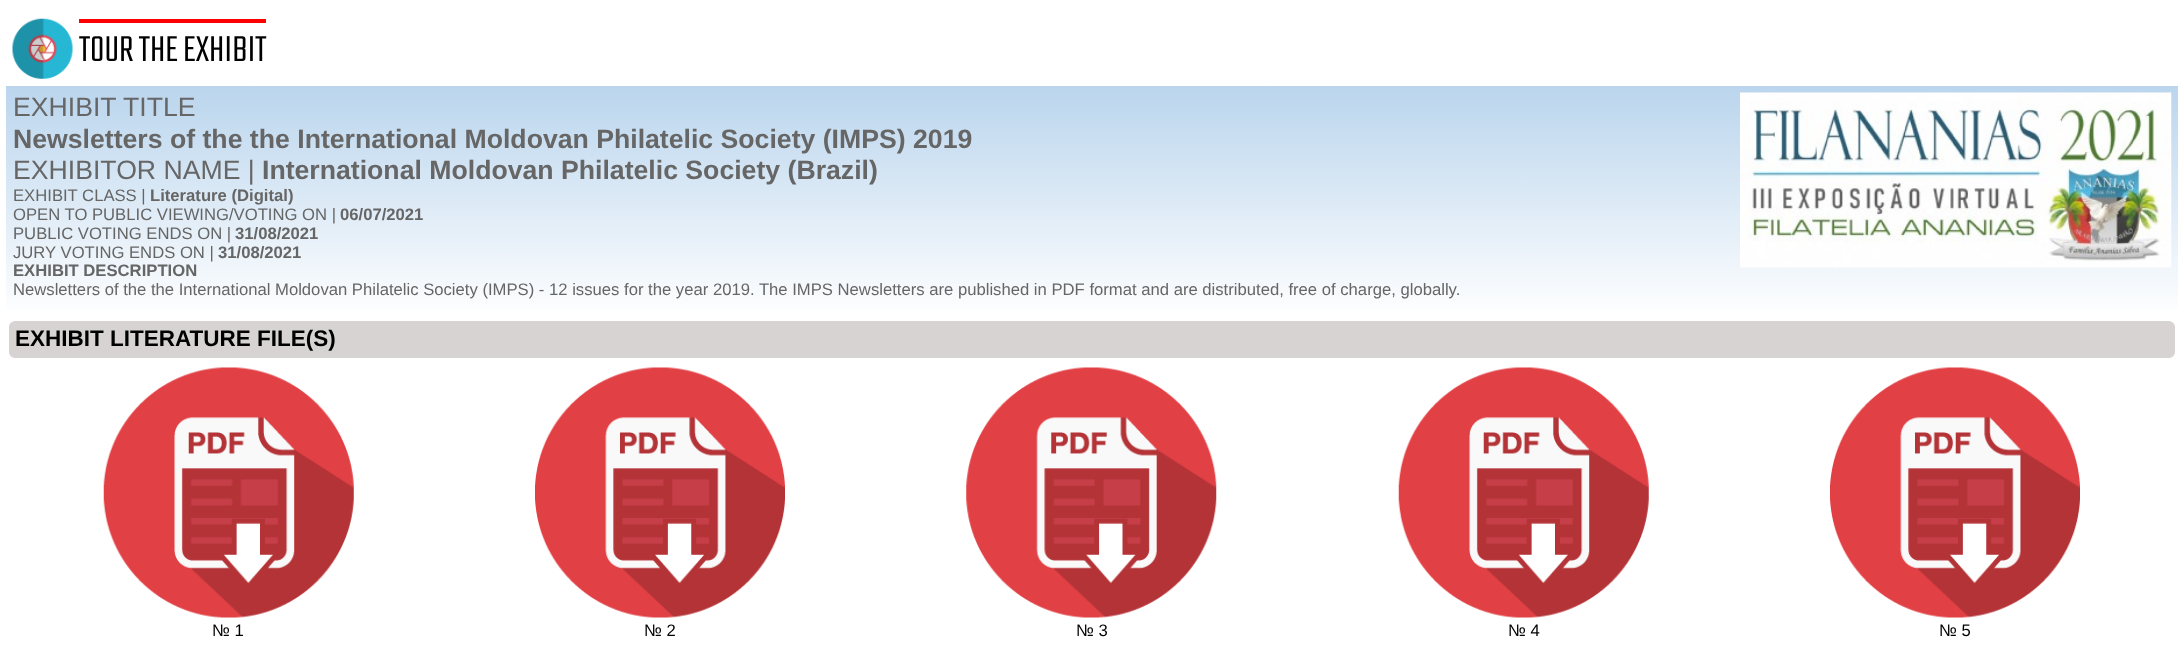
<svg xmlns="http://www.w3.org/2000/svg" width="2183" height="650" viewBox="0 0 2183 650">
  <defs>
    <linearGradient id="g1" gradientUnits="userSpaceOnUse" x1="1092" y1="86" x2="1092" y2="318"><stop offset="0" stop-color="rgb(186,213,237)"/><stop offset="1" stop-color="rgb(255,255,255)"/></linearGradient>
  </defs>
  <rect width="100%" height="100%" fill="rgb(255,255,255)"/>
  <image x="12" y="18" width="61" height="61" href="pic1.png"/>
  <rect x="79" y="19" width="187" height="4" fill="rgb(255,0,0)"/>
  <text x="79" y="61" font-family="Teko" font-size="40" font-weight="300" fill="rgb(0,0,0)">TOUR THE EXHIBIT</text>
  <rect x="6" y="86" width="2172" height="224" fill="url(#g1)"/>
  <text x="13" y="116" font-family="Liberation Sans" font-size="26.65" fill="rgb(102,102,102)">EXHIBIT TITLE</text>
  <image x="1740" y="92" width="432" height="176" href="pic2.png"/>
  <text x="13" y="148" font-family="Liberation Sans" font-size="26.65" font-weight="bold" fill="rgb(102,102,102)">Newsletters of the the International Moldovan Philatelic Society (IMPS) 2019</text>
  <text x="13" y="179" font-family="Liberation Sans" font-size="26.65" fill="rgb(102,102,102)">EXHIBITOR NAME |</text>
  <text x="262" y="179" font-family="Liberation Sans" font-size="26.65" font-weight="bold" fill="rgb(102,102,102)">International Moldovan Philatelic Society (Brazil)</text>
  <text x="13" y="201" font-family="Liberation Sans" font-size="16.67" fill="rgb(102,102,102)">EXHIBIT CLASS |</text>
  <text x="150" y="201" font-family="Liberation Sans" font-size="16.67" font-weight="bold" fill="rgb(102,102,102)">Literature (Digital)</text>
  <text x="13" y="220" font-family="Liberation Sans" font-size="16.67" fill="rgb(102,102,102)">OPEN TO PUBLIC VIEWING/VOTING ON |</text>
  <text x="340" y="220" font-family="Liberation Sans" font-size="16.67" font-weight="bold" fill="rgb(102,102,102)">06/07/2021</text>
  <text x="13" y="239" font-family="Liberation Sans" font-size="16.67" fill="rgb(102,102,102)">PUBLIC VOTING ENDS ON |</text>
  <text x="235" y="239" font-family="Liberation Sans" font-size="16.67" font-weight="bold" fill="rgb(102,102,102)">31/08/2021</text>
  <text x="13" y="258" font-family="Liberation Sans" font-size="16.67" fill="rgb(102,102,102)">JURY VOTING ENDS ON |</text>
  <g font-family="Liberation Sans" font-size="16.67" font-weight="bold" fill="rgb(102,102,102)">
    <text x="218" y="258">31/08/2021</text>
    <text x="13" y="276">EXHIBIT DESCRIPTION</text>
  </g>
  <text x="13" y="295" font-family="Liberation Sans" font-size="16.67" fill="rgb(102,102,102)">Newsletters of the the International Moldovan Philatelic Society (IMPS) - 12 issues for the year 2019. The IMPS Newsletters are published in PDF format and are distributed, free of charge, globally.</text>
  <rect x="7.5" y="319.5" width="2169" height="40" rx="7.5" fill="rgb(215,211,211)" stroke="rgb(255,255,255)" stroke-width="3"/>
  <text x="15" y="346" font-family="Liberation Sans" font-size="22.5" font-weight="bold" fill="rgb(0,0,0)">EXHIBIT LITERATURE FILE(S)</text>
  <image x="103" y="367" width="251" height="251" href="pic3.png"/>
  <text x="212" y="636" font-family="Liberation Sans" font-size="16.67" fill="rgb(0,0,0)">№ 1</text>
  <image x="535" y="367" width="250" height="251" href="pic4.png"/>
  <text x="644" y="636" font-family="Liberation Sans" font-size="16.67" fill="rgb(0,0,0)">№ 2</text>
  <image x="966" y="367" width="251" height="251" href="pic5.png"/>
  <text x="1076" y="636" font-family="Liberation Sans" font-size="16.67" fill="rgb(0,0,0)">№ 3</text>
  <image x="1398" y="367" width="251" height="251" href="pic6.png"/>
  <text x="1508" y="636" font-family="Liberation Sans" font-size="16.67" fill="rgb(0,0,0)">№ 4</text>
  <image x="1830" y="367" width="250" height="251" href="pic4.png"/>
  <text x="1939" y="636" font-family="Liberation Sans" font-size="16.67" fill="rgb(0,0,0)">№ 5</text>
</svg>
